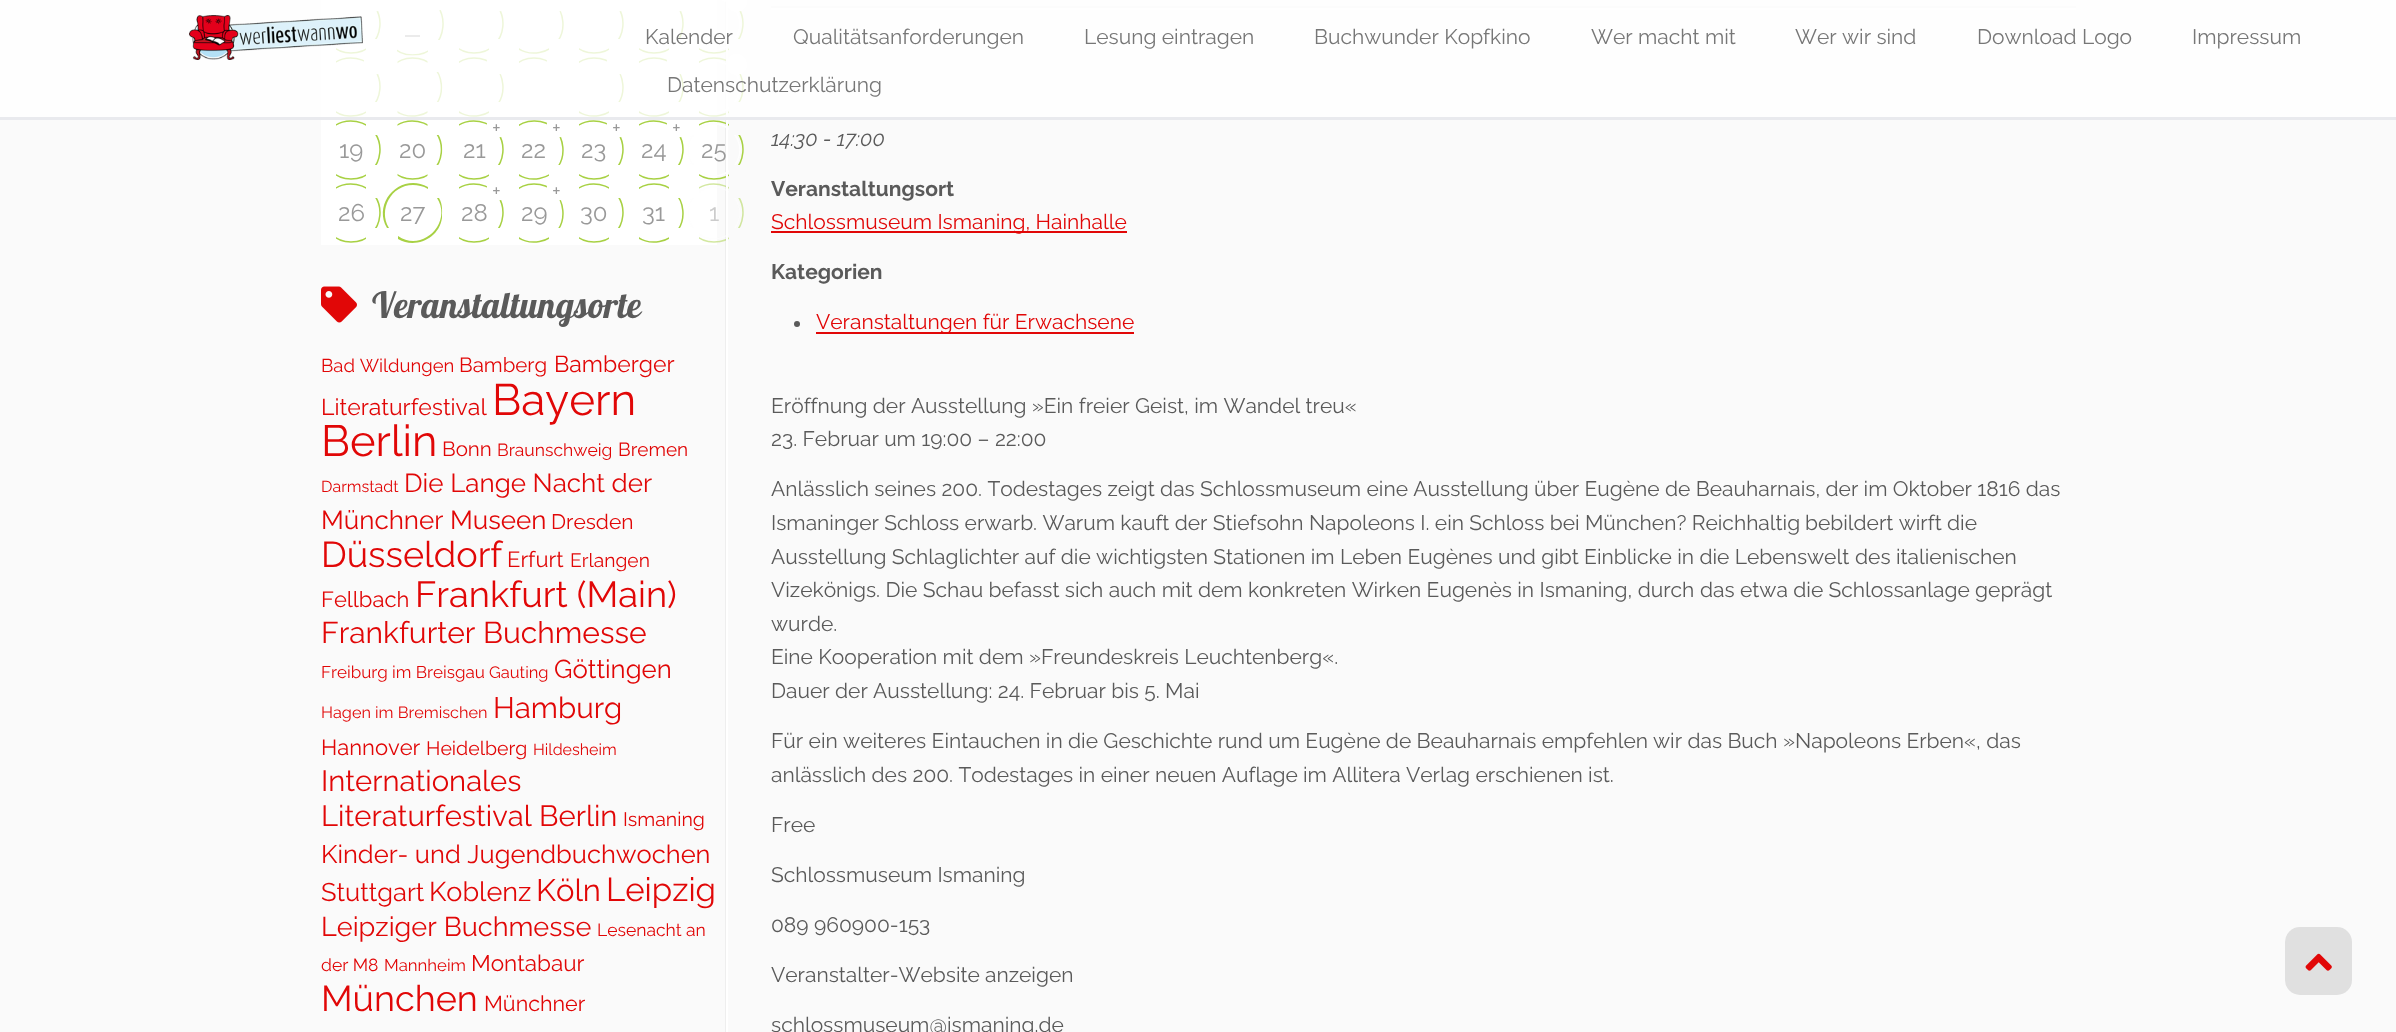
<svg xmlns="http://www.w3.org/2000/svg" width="2396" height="1032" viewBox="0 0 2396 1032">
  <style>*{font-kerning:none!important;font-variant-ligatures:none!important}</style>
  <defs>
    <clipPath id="clip1"><path d="M321 9H336V-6H366V9H381V39H366V54H336V39H321Z"/></clipPath>
    <clipPath id="clip2"><path d="M381 8.5H397V-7.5H428V8.5H444V40H428V55.5H397V40H381Z"/></clipPath>
    <clipPath id="clip3"><path d="M444 9H459V-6H489V9H504V39H489V54H459V39H444Z"/></clipPath>
    <clipPath id="clip4"><path d="M504 9H519V-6H549V9H564V39H549V54H519V39H504Z"/></clipPath>
    <clipPath id="clip5"><path d="M564 9H579V-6H609V9H624V39H609V54H579V39H564Z"/></clipPath>
    <clipPath id="clip6"><path d="M624 9H639V-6H669V9H684V39H669V54H639V39H624Z"/></clipPath>
    <clipPath id="clip7"><path d="M684 9H699V-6H729V9H744V39H729V54H699V39H684Z"/></clipPath>
    <clipPath id="clip8"><path d="M321 72H336V57H366V72H381V102H366V117H336V102H321Z"/></clipPath>
    <clipPath id="clip9"><path d="M382.5 72H397.5V57H427.5V72H442.5V102H427.5V117H397.5V102H382.5Z"/></clipPath>
    <clipPath id="clip10"><path d="M444 72H459V57H489V72H504V102H489V117H459V102H444Z"/></clipPath>
    <clipPath id="clip11"><path d="M504 72H519V57H549V72H564V102H549V117H519V102H504Z"/></clipPath>
    <clipPath id="clip12"><path d="M564 72H579V57H609V72H624V102H609V117H579V102H564Z"/></clipPath>
    <clipPath id="clip13"><path d="M624 72H639V57H669V72H684V102H669V117H639V102H624Z"/></clipPath>
    <clipPath id="clip14"><path d="M684 72H699V57H729V72H744V102H729V117H699V102H684Z"/></clipPath>
    <clipPath id="clip15"><path d="M684 135H699V120H729V135H744V165H729V180H699V165H684Z"/></clipPath>
    <clipPath id="clip16"><path d="M684 198H699V183H729V198H744V228H729V243H699V228H684Z"/></clipPath>
    <clipPath id="clip17"><path d="M444 135H459V120H489V135H504V165H489V180H459V165H444Z"/></clipPath>
    <clipPath id="clip18"><path d="M504 135H519V120H549V135H564V165H549V180H519V165H504Z"/></clipPath>
    <clipPath id="clip19"><path d="M564 135H579V120H609V135H624V165H609V180H579V165H564Z"/></clipPath>
    <clipPath id="clip20"><path d="M624 135H639V120H669V135H684V165H669V180H639V165H624Z"/></clipPath>
    <clipPath id="clip21"><path d="M321 135H336V120H366V135H381V165H366V180H336V165H321Z"/></clipPath>
    <clipPath id="clip22"><path d="M382.5 135H397.5V120H427.5V135H442.5V165H427.5V180H397.5V165H382.5Z"/></clipPath>
    <clipPath id="clip23"><path d="M321 198H336V183H366V198H381V228H366V243H336V228H321Z"/></clipPath>
    <clipPath id="clip24"><path d="M444 198H459V183H489V198H504V228H489V243H459V228H444Z"/></clipPath>
    <clipPath id="clip25"><path d="M504 198H519V183H549V198H564V228H549V243H519V228H504Z"/></clipPath>
    <clipPath id="clip26"><path d="M564 198H579V183H609V198H624V228H609V243H579V228H564Z"/></clipPath>
    <clipPath id="clip27"><path d="M624 198H639V183H669V198H684V228H669V243H639V228H624Z"/></clipPath>
  </defs>
  <rect width="100%" height="100%" fill="rgb(250,250,250)"/>
  <rect x="725" y="0" width="1" height="1032" fill="rgb(238,238,238)"/>
  <rect x="321" y="0" width="396" height="245" fill="rgb(255,255,255)"/>
  <g clip-path="url(#clip1)">
    <path d="M330.5 3.5C337-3.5 347-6.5 356.5-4.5C391 2 386 53 351 53C343.5 53 336 50 330.5 44.5" fill="none" stroke="rgb(168,209,68)" stroke-width="1.5"/>
  </g>
  <circle cx="373.5" cy="1.5" r="10.5" fill="rgb(255,255,255)"/>
  <g clip-path="url(#clip2)">
    <path d="M391 2.5C398-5 408.5-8 418.5-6C454.5 1 449.5 55 412.5 55C404.5 55 396.5 51.5 391 45.5" fill="none" stroke="rgb(168,209,68)" stroke-width="1.5"/>
  </g>
  <circle cx="436.5" cy="0.5" r="10.5" fill="rgb(255,255,255)"/>
  <rect x="405" y="35" width="15" height="2" fill="rgb(153,153,153)"/>
  <g clip-path="url(#clip3)">
    <path d="M453.5 3.5C460-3.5 470-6.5 479.5-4.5C514 2 509 53 474 53C466.5 53 459 50 453.5 44.5" fill="none" stroke="rgb(168,209,68)" stroke-width="1.5"/>
  </g>
  <circle cx="496.5" cy="1.5" r="10.5" fill="rgb(255,255,255)"/>
  <g clip-path="url(#clip4)">
    <path d="M513.5 3.5C519-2 526.5-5 534-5C569-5 574 46 539.5 52.5C530 54.5 520 51.5 513.5 44.5" fill="none" stroke="rgb(168,209,68)" stroke-width="1.5"/>
  </g>
  <circle cx="556.5" cy="1.5" r="10.5" fill="rgb(255,255,255)"/>
  <g clip-path="url(#clip5)">
    <path d="M573.5 3.5C580-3.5 590-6.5 599.5-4.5C634 2 629 53 594 53C586.5 53 579 50 573.5 44.5" fill="none" stroke="rgb(168,209,68)" stroke-width="1.5"/>
  </g>
  <circle cx="616.5" cy="1.5" r="10.5" fill="rgb(255,255,255)"/>
  <g clip-path="url(#clip6)">
    <path d="M633.5 3.5C640-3.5 650-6.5 659.5-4.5C694 2 689 53 654 53C646.5 53 639 50 633.5 44.5" fill="none" stroke="rgb(168,209,68)" stroke-width="1.5"/>
  </g>
  <circle cx="676.5" cy="1.5" r="10.5" fill="rgb(255,255,255)"/>
  <g clip-path="url(#clip7)">
    <path d="M693.5 3.5C700-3.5 710-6.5 719.5-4.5C754 2 749 53 714 53C706.5 53 699 50 693.5 44.5" fill="none" stroke="rgb(168,209,68)" stroke-width="1.5"/>
  </g>
  <path d="M729 46C720 52 708 52 699 46V44C708 51 720 51 729 44ZM736 9C742 18 742 30 736 39H734C741 30 741 18 734 9ZM714-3C720-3 725-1 729 2V4C720-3 708-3 699 4V2C703-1 708-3 714-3ZM692 9C686 18 686 30 692 39H694C687 30 687 18 694 9Z" fill="rgb(254,254,254)" fill-rule="evenodd"/>
  <circle cx="736.5" cy="1.5" r="10.5" fill="rgb(255,255,255)"/>
  <g clip-path="url(#clip8)">
    <path d="M330.5 66.5C337 59.5 347 56.5 356.5 58.5C391 65 386 116 351 116C343.5 116.5 336 113 330.5 107.5" fill="none" stroke="rgb(168,209,68)" stroke-width="1.5"/>
  </g>
  <circle cx="373.5" cy="64.5" r="10.5" fill="rgb(255,255,255)"/>
  <g clip-path="url(#clip9)">
    <path d="M392 66.5C397.5 61 405 58 412.5 58C447.5 58 452.5 109 418 115.5C408.5 117.5 398.5 114.5 392 107.5" fill="none" stroke="rgb(168,209,68)" stroke-width="1.5"/>
  </g>
  <g clip-path="url(#clip10)">
    <path d="M453.5 66.5C459 61 466.5 58 474 58C509 58 514 109 479.5 115.5C470 117.5 460 114.5 453.5 107.5" fill="none" stroke="rgb(168,209,68)" stroke-width="1.5"/>
  </g>
  <circle cx="496.5" cy="64.5" r="10.5" fill="rgb(255,255,255)"/>
  <g clip-path="url(#clip11)">
    <path d="M513.5 66.5C524.5 55 543.5 55 554.5 66.5" fill="none" stroke="rgb(168,209,68)" stroke-width="1.5"/>
  </g>
  <circle cx="556.5" cy="64.5" r="10.5" fill="rgb(255,255,255)"/>
  <g clip-path="url(#clip12)">
    <path d="M573.5 66.5C579 61 586.5 58 594 58C629 58 634 109 599.5 115.5C590 117.5 580 114.5 573.5 107.5" fill="none" stroke="rgb(168,209,68)" stroke-width="1.5"/>
  </g>
  <circle cx="616.5" cy="64.5" r="10.5" fill="rgb(255,255,255)"/>
  <g clip-path="url(#clip13)">
    <path d="M633.5 66.5C639 61 646.5 58 654 58C689 58 694 109 659.5 115.5C650 117.5 640 114.5 633.5 107.5" fill="none" stroke="rgb(168,209,68)" stroke-width="1.5"/>
  </g>
  <circle cx="676.5" cy="64.5" r="10.5" fill="rgb(255,255,255)"/>
  <g clip-path="url(#clip14)">
    <path d="M693.5 66.5C699 61 706.5 58 714 58C749 58 754 109 719.5 115.5C710 117.5 700 114.5 693.5 107.5" fill="none" stroke="rgb(168,209,68)" stroke-width="1.5"/>
  </g>
  <path d="M729 109C720 115 708 115 699 109V107C708 114 720 114 729 107ZM736 72C742 81 742 93 736 102H734C741 93 741 81 734 72ZM714 60C720 60 725 62 729 65V67C720 60 708 60 699 67V65C703 62 708 60 714 60ZM692 72C686 81 686 93 692 102H694C687 93 687 81 694 72Z" fill="rgb(254,254,254)" fill-rule="evenodd"/>
  <circle cx="736.5" cy="64.5" r="10.5" fill="rgb(255,255,255)"/>
  <g clip-path="url(#clip15)">
    <path d="M693.5 129.5C700 122.5 710 119.5 719.5 121.5C754 128 749 179 714 179C706.5 179 699 176 693.5 170.5" fill="none" stroke="rgb(168,209,68)" stroke-width="1.5"/>
  </g>
  <path d="M729 172C720 178 708 178 699 172V170C708 177 720 177 729 170ZM736 135C742 144 742 156 736 165H734C741 156 741 144 734 135ZM714 123C720 123 725 125 729 128V130C720 123 708 123 699 130V128C703 125 708 123 714 123ZM692 135C686 144 686 156 692 165H694C687 156 687 144 694 135Z" fill="rgb(254,254,254)" fill-rule="evenodd"/>
  <g clip-path="url(#clip16)">
    <path d="M693.5 192.5C700 185.5 710 182.5 719.5 184.5C754 191 749 242 714 242C706.5 242 699 239 693.5 233.5" fill="none" stroke="rgba(168,209,68,0.5)" stroke-width="1.5"/>
  </g>
  <path d="M729 235C720 241 708 241 699 235V233C708 240 720 240 729 233ZM736 198C742 207 742 219 736 228H734C741 219 741 207 734 198ZM714 186C720 186 725 188 729 191V193C720 186 708 186 699 193V191C703 188 708 186 714 186ZM692 198C686 207 686 219 692 228H694C687 219 687 207 694 198Z" fill="rgba(254,254,254,0.5)" fill-rule="evenodd"/>
  <rect x="726" y="0" width="2" height="1032" fill="rgb(255,255,255)"/>
  <rect x="771" y="6" width="1305" height="2" fill="rgb(238,238,238)"/>
  <rect x="771" y="8" width="1305" height="2" fill="rgb(255,255,255)"/>
  <rect x="0" y="0" width="2396" height="117" fill="rgba(255,255,255,0.8)"/>
  <g clip-path="url(#clip17)">
    <path d="M453.5 129.5C460 122.5 470 119.5 479.5 121.5C514 128 509 179 474 179C466.5 179 459 176 453.5 170.5" fill="none" stroke="rgb(168,209,68)" stroke-width="1.5"/>
  </g>
  <circle cx="496.5" cy="127.5" r="10.5" fill="rgb(255,255,255)"/>
  <g clip-path="url(#clip18)">
    <path d="M513.5 129.5C519 124 526.5 121 534 121C569 120.5 574 172 539.5 178.5C530 180.5 520 177.5 513.5 170.5" fill="none" stroke="rgb(168,209,68)" stroke-width="1.5"/>
  </g>
  <circle cx="556.5" cy="127.5" r="10.5" fill="rgb(255,255,255)"/>
  <g clip-path="url(#clip19)">
    <path d="M573.5 129.5C580 122.5 590 119.5 599.5 121.5C634 128 629 179 594 179C586.5 179 579 176 573.5 170.5" fill="none" stroke="rgb(168,209,68)" stroke-width="1.5"/>
  </g>
  <circle cx="616.5" cy="127.5" r="10.5" fill="rgb(255,255,255)"/>
  <g clip-path="url(#clip20)">
    <path d="M633.5 129.5C640 122.5 650 119.5 659.5 121.5C694 128 689 179 654 179C646.5 179 639 176 633.5 170.5" fill="none" stroke="rgb(168,209,68)" stroke-width="1.5"/>
  </g>
  <circle cx="676.5" cy="127.5" r="10.5" fill="rgb(255,255,255)"/>
  <rect x="0" y="117" width="2396" height="3" fill="rgb(233,234,238)"/>
  <image x="189" y="15" width="174" height="45" href="pic1.png"/>
  <g font-family="Raleway" font-size="21" fill="rgb(119,119,119)">
    <text x="645" y="44">Kalender</text>
    <text x="793" y="44">Qualitätsanforderungen</text>
    <text x="1084" y="44">Lesung eintragen</text>
    <text x="1314" y="44">Buchwunder Kopfkino</text>
    <text x="1591" y="44">Wer macht mit</text>
    <text x="1795" y="44">Wer wir sind</text>
    <text x="1977" y="44">Download Logo</text>
    <text x="2192" y="44">Impressum</text>
    <text x="667" y="92">Datenschutzerklärung</text>
  </g>
  <g clip-path="url(#clip21)">
    <path d="M330.5 129.5C337 122.5 347 119.5 356.5 121.5C391 128 386 179 351 179C343.5 179 336 176 330.5 170.5" fill="none" stroke="rgb(168,209,68)" stroke-width="1.5"/>
  </g>
  <text x="339" y="158" font-family="Raleway" font-size="24" fill="rgb(153,153,153)">19</text>
  <g clip-path="url(#clip22)">
    <path d="M392 129.5C398.5 122.5 408.5 119.5 418 121.5C452.5 128 447.5 179 412.5 179C405 179 397.5 176 392 170.5" fill="none" stroke="rgb(168,209,68)" stroke-width="1.5"/>
  </g>
  <text x="399" y="158" font-family="Raleway" font-size="24" fill="rgb(153,153,153)">20</text>
  <text x="492" y="135" font-family="Raleway" font-size="21" fill="rgb(153,153,153)">+</text>
  <text x="463" y="158" font-family="Raleway" font-size="24" fill="rgb(153,153,153)">21</text>
  <text x="552" y="135" font-family="Raleway" font-size="21" fill="rgb(153,153,153)">+</text>
  <text x="521" y="158" font-family="Raleway" font-size="24" fill="rgb(153,153,153)">22</text>
  <text x="612" y="135" font-family="Raleway" font-size="21" fill="rgb(153,153,153)">+</text>
  <text x="581" y="158" font-family="Raleway" font-size="24" fill="rgb(153,153,153)">23</text>
  <text x="672" y="135" font-family="Raleway" font-size="21" fill="rgb(153,153,153)">+</text>
  <g font-family="Raleway" font-size="24" fill="rgb(153,153,153)">
    <text x="641" y="158">24</text>
    <text x="701" y="158">25</text>
  </g>
  <g clip-path="url(#clip23)">
    <path d="M330.5 192.5C337 185.5 347 182.5 356.5 184.5C391 191 386 242 351 242C343.5 242 336 239 330.5 233.5" fill="none" stroke="rgb(168,209,68)" stroke-width="1.5"/>
  </g>
  <text x="338" y="221" font-family="Raleway" font-size="24" fill="rgb(153,153,153)">26</text>
  <path d="M413 185C391 185 378 210 389 228H387C372 202 401 172 428 187V189C423 186 418 185 413 185ZM442 218C439 239 415 249 398 239V236C422 253 453 223 437 198H439C443 205 442 211 442 218Z" fill="rgb(168,209,68)" fill-rule="evenodd"/>
  <text x="400" y="221" font-family="Raleway" font-size="24" fill="rgb(153,153,153)">27</text>
  <g clip-path="url(#clip24)">
    <path d="M453.5 192.5C460 185.5 470 182.5 479.5 184.5C514 191 509 242 474 242C466.5 242 459 239 453.5 233.5" fill="none" stroke="rgb(168,209,68)" stroke-width="1.5"/>
  </g>
  <circle cx="496.5" cy="190.5" r="10.5" fill="rgb(255,255,255)"/>
  <text x="492" y="198" font-family="Raleway" font-size="21" fill="rgb(153,153,153)">+</text>
  <text x="461" y="221" font-family="Raleway" font-size="24" fill="rgb(153,153,153)">28</text>
  <g clip-path="url(#clip25)">
    <path d="M513.5 192.5C519 187 526.5 184 534 184C569 184 574 235 539.5 241.5C530 243.5 520 240.5 513.5 233.5" fill="none" stroke="rgb(168,209,68)" stroke-width="1.5"/>
  </g>
  <circle cx="556.5" cy="190.5" r="10.5" fill="rgb(255,255,255)"/>
  <text x="552" y="198" font-family="Raleway" font-size="21" fill="rgb(153,153,153)">+</text>
  <text x="521" y="221" font-family="Raleway" font-size="24" fill="rgb(153,153,153)">29</text>
  <g clip-path="url(#clip26)">
    <path d="M573.5 192.5C580 185.5 590 182.5 599.5 184.5C634 191 629 242 594 242C586.5 242 579 239 573.5 233.5" fill="none" stroke="rgb(168,209,68)" stroke-width="1.5"/>
  </g>
  <text x="580" y="221" font-family="Raleway" font-size="24" fill="rgb(153,153,153)">30</text>
  <g clip-path="url(#clip27)">
    <path d="M633.5 192.5C639 187 646.5 184 654 184C689 184 694 235 659.5 241.5C650 243.5 640 240.5 633.5 233.5" fill="none" stroke="rgb(168,209,68)" stroke-width="1.5"/>
  </g>
  <text x="642" y="221" font-family="Raleway" font-size="24" fill="rgb(153,153,153)">31</text>
  <text x="709" y="221" font-family="Raleway" font-size="24" fill="rgb(204,204,204)">1</text>
  <image x="321" y="286" width="36" height="37" href="pic2.png"/>
  <text x="372" y="318" font-family="Lobster" font-size="36" fill="rgb(90,90,90)">Veranstaltungsorte</text>
  <text x="321" y="372" font-family="Raleway" font-size="18.5" fill="rgb(225,7,7)">Bad Wildungen</text>
  <text x="459" y="372" font-family="Raleway" font-size="20.5" fill="rgb(225,7,7)">Bamberg</text>
  <g font-family="Raleway" font-size="23" fill="rgb(225,7,7)">
    <text x="554" y="372">Bamberger</text>
    <text x="321" y="415">Literaturfestival</text>
  </g>
  <text x="492" y="415" font-family="Raleway" font-size="44" fill="rgb(225,7,7)">Bayern</text>
  <text x="321" y="456" font-family="Raleway" font-size="43.5" fill="rgb(225,7,7)">Berlin</text>
  <text x="442" y="456" font-family="Raleway" font-size="20.5" fill="rgb(225,7,7)">Bonn</text>
  <text x="497" y="456" font-family="Raleway" font-size="17.5" fill="rgb(225,7,7)">Braunschweig</text>
  <text x="618" y="456" font-family="Raleway" font-size="19" fill="rgb(225,7,7)">Bremen</text>
  <text x="321" y="492" font-family="Raleway" font-size="16" fill="rgb(225,7,7)">Darmstadt</text>
  <g font-family="Raleway" font-size="26" fill="rgb(225,7,7)">
    <text x="404" y="492">Die Lange Nacht der</text>
    <text x="321" y="529">Münchner Museen</text>
  </g>
  <text x="551" y="529" font-family="Raleway" font-size="21" fill="rgb(225,7,7)">Dresden</text>
  <text x="321" y="567" font-family="Raleway" font-size="36" fill="rgb(225,7,7)">Düsseldorf</text>
  <text x="507" y="567" font-family="Raleway" font-size="22" fill="rgb(225,7,7)">Erfurt</text>
  <text x="570" y="567" font-family="Raleway" font-size="19.25" fill="rgb(225,7,7)">Erlangen</text>
  <text x="321" y="607" font-family="Raleway" font-size="22" fill="rgb(225,7,7)">Fellbach</text>
  <text x="415" y="607" font-family="Raleway" font-size="36.25" fill="rgb(225,7,7)">Frankfurt (Main)</text>
  <text x="321" y="643" font-family="Raleway" font-size="30" fill="rgb(225,7,7)">Frankfurter Buchmesse</text>
  <text x="321" y="678" font-family="Raleway" font-size="17" fill="rgb(225,7,7)">Freiburg im Breisgau</text>
  <text x="489" y="678" font-family="Raleway" font-size="16.5" fill="rgb(225,7,7)">Gauting</text>
  <text x="554" y="678" font-family="Raleway" font-size="25.75" fill="rgb(225,7,7)">Göttingen</text>
  <text x="321" y="718" font-family="Raleway" font-size="16.25" fill="rgb(225,7,7)">Hagen im Bremischen</text>
  <text x="493" y="718" font-family="Raleway" font-size="29.5" fill="rgb(225,7,7)">Hamburg</text>
  <text x="321" y="755" font-family="Raleway" font-size="22" fill="rgb(225,7,7)">Hannover</text>
  <text x="426" y="755" font-family="Raleway" font-size="19.5" fill="rgb(225,7,7)">Heidelberg</text>
  <text x="533" y="755" font-family="Raleway" font-size="16" fill="rgb(225,7,7)">Hildesheim</text>
  <g font-family="Raleway" font-size="29.25" fill="rgb(225,7,7)">
    <text>
      <tspan x="321" y="791">Internationales</tspan>
      <tspan x="321" y="826">Literaturfestival Berlin</tspan>
    </text>
  </g>
  <text x="623" y="826" font-family="Raleway" font-size="19.5" fill="rgb(225,7,7)">Ismaning</text>
  <g font-family="Raleway" font-size="25.5" fill="rgb(225,7,7)">
    <text>
      <tspan x="321" y="863">Kinder- und Jugendbuchwochen</tspan>
      <tspan x="321" y="901">Stuttgart</tspan>
    </text>
  </g>
  <text x="429" y="901" font-family="Raleway" font-size="27" fill="rgb(225,7,7)">Koblenz</text>
  <text x="536" y="901" font-family="Raleway" font-size="31" fill="rgb(225,7,7)">Köln</text>
  <text x="606" y="901" font-family="Raleway" font-size="33" fill="rgb(225,7,7)">Leipzig</text>
  <text x="321" y="936" font-family="Raleway" font-size="27.1" fill="rgb(225,7,7)">Leipziger Buchmesse</text>
  <g font-family="Raleway" font-size="17.5" fill="rgb(225,7,7)">
    <text x="597" y="936">Lesenacht an</text>
    <text x="321" y="971">der M8</text>
  </g>
  <text x="384" y="971" font-family="Raleway" font-size="16.75" fill="rgb(225,7,7)">Mannheim</text>
  <text x="471" y="971" font-family="Raleway" font-size="22.5" fill="rgb(225,7,7)">Montabaur</text>
  <text x="321" y="1011" font-family="Raleway" font-size="36" fill="rgb(225,7,7)">München</text>
  <text x="484" y="1011" font-family="Raleway" font-size="21.5" fill="rgb(225,7,7)">Münchner</text>
  <text x="771" y="146" font-family="Raleway" font-size="21" font-style="italic" fill="rgb(90,90,90)">14:30 - 17:00</text>
  <text x="771" y="196" font-family="Raleway" font-size="21" font-weight="bold" fill="rgb(90,90,90)">Veranstaltungsort</text>
  <rect x="771" y="231" width="356" height="2" fill="rgb(225,7,7)"/>
  <text x="771" y="229" font-family="Raleway" font-size="21" fill="rgb(225,7,7)">Schlossmuseum Ismaning, Hainhalle</text>
  <text x="771" y="279" font-family="Raleway" font-size="21" font-weight="bold" fill="rgb(90,90,90)">Kategorien</text>
  <circle cx="797" cy="324" r="3" fill="rgb(90,90,90)"/>
  <rect x="816" y="332" width="318" height="2" fill="rgb(225,7,7)"/>
  <text x="816" y="329" font-family="Raleway" font-size="21" fill="rgb(225,7,7)">Veranstaltungen für Erwachsene</text>
  <g font-family="Raleway" font-size="21" fill="rgb(90,90,90)">
    <text x="771" y="413">Eröffnung der Ausstellung »Ein freier</text>
    <text x="1135" y="413">Geist, im Wandel treu«</text>
    <text x="771" y="446">23. Februar um 19:00 – 22:00</text>
    <text x="771" y="496">Anlässlich seines 200. Todestages zeigt das Schlossmuseum eine Ausstellung</text>
    <text x="1534" y="496">über Eugène de Beauharnais, der im Oktober 1816 das</text>
    <text x="771" y="530">Ismaninger Schloss erwarb. Warum kauft der Stiefsohn Napoleons I. ein Schloss bei München? Reichhaltig</text>
    <text x="1805" y="530">bebildert wirft die</text>
    <text x="771" y="564">Ausstellung Schlaglichter auf die wichtigsten Stationen im Leben Eugènes und gibt Einblicke in die Lebenswelt</text>
    <text x="1855" y="564">des italienischen</text>
    <text x="771" y="597">Vizekönigs. Die Schau befasst sich auch mit dem konkreten Wirken Eugenès in Ismaning, durch</text>
    <text x="1700" y="597">das etwa die Schlossanlage geprägt</text>
    <text>
      <tspan x="771" y="631">wurde.</tspan>
      <tspan x="771" y="664">Eine Kooperation mit dem »Freundeskreis Leuchtenberg«.</tspan>
      <tspan x="771" y="698">Dauer der Ausstellung: 24. Februar bis 5. Mai</tspan>
    </text>
    <text x="771" y="748">Für ein weiteres Eintauchen in die Geschichte rund um Eugène de Beauharnais empfehlen</text>
    <text x="1653" y="748">wir das Buch »Napoleons Erben«, das</text>
    <text x="771" y="782">anlässlich des 200. Todestages in einer neuen Auflage</text>
    <text x="1303" y="782">im Allitera Verlag erschienen ist.</text>
    <text x="771" y="832">Free</text>
    <text x="771" y="882">Schlossmuseum Ismaning</text>
    <text x="771" y="932">089 960900-153</text>
    <text x="771" y="982">Veranstalter-Website</text>
    <text x="985" y="982">anzeigen</text>
    <text x="771" y="1032">schlossmuseum@ismaning.de</text>
  </g>
  <rect x="2285" y="927" width="67" height="68" rx="15" fill="rgb(224,224,224)"/>
  <image x="2305" y="953" width="27" height="18" href="pic3.png"/>
</svg>
